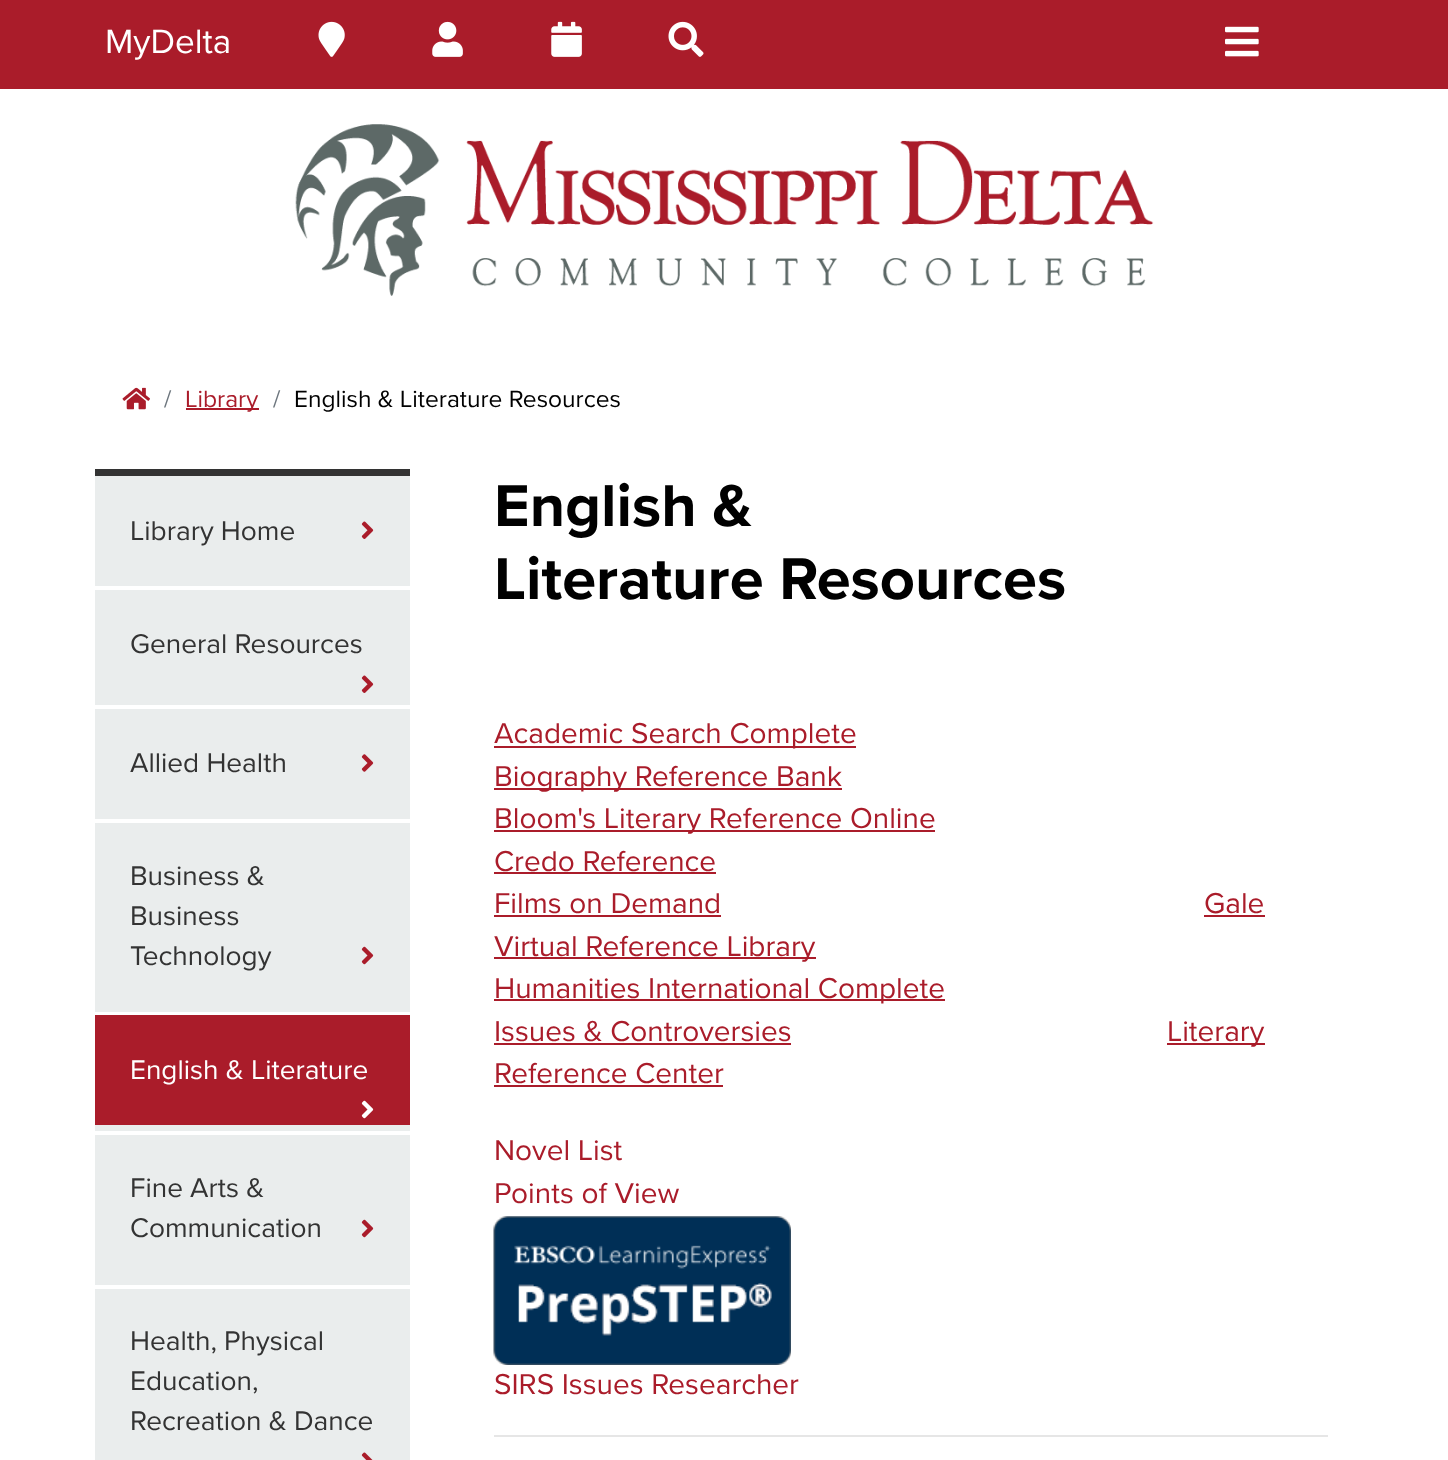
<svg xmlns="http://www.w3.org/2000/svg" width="1448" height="1460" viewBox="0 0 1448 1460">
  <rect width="100%" height="100%" fill="rgb(255,255,255)"/>
  <rect x="0" y="0" width="1448" height="89" fill="rgb(170,28,42)"/>
  <text x="105" y="53" font-family="Proxima Nova" font-size="35" fill="rgb(255,255,255)">MyDelta</text>
  <image x="318" y="21" width="27" height="36" href="pic1.png"/>
  <image x="432" y="21" width="31" height="36" href="pic2.png"/>
  <image x="551" y="21" width="31" height="36" href="pic3.png"/>
  <image x="668" y="21" width="36" height="36" href="pic4.png"/>
  <image x="1225" y="26" width="34" height="31" href="pic5.png"/>
  <image x="295" y="124" width="859" height="172" href="pic6.png"/>
  <image x="122" y="387" width="28" height="23" href="pic7.png"/>
  <text x="164" y="407" font-family="Proxima Nova" font-size="24.5" fill="rgb(108,117,125)">/</text>
  <rect x="186" y="408" width="73" height="2" fill="rgb(170,28,42)"/>
  <text x="185" y="407" font-family="Proxima Nova" font-size="24.5" fill="rgb(170,28,42)">Library</text>
  <text x="273" y="407" font-family="Proxima Nova" font-size="24.5" fill="rgb(108,117,125)">/</text>
  <text x="294" y="407" font-family="Proxima Nova" font-size="24.5" fill="rgb(0,0,0)">English &amp; Literature Resources</text>
  <rect x="95" y="476" width="315" height="984" fill="rgb(234,237,237)"/>
  <rect x="95" y="586" width="315" height="4" fill="rgb(255,255,255)"/>
  <rect x="95" y="469" width="315" height="7" fill="rgb(51,51,51)"/>
  <text x="130" y="540" font-family="Proxima Nova" font-size="28" fill="rgb(51,51,51)">Library Home</text>
  <image x="361" y="521" width="13" height="18" href="pic8.png"/>
  <rect x="95" y="705" width="315" height="4" fill="rgb(255,255,255)"/>
  <text x="130" y="653" font-family="Proxima Nova" font-size="28" fill="rgb(51,51,51)">General Resources</text>
  <image x="361" y="675" width="13" height="18" href="pic8.png"/>
  <rect x="95" y="819" width="315" height="4" fill="rgb(255,255,255)"/>
  <text x="130" y="772" font-family="Proxima Nova" font-size="28" fill="rgb(51,51,51)">Allied Health</text>
  <image x="361" y="754" width="13" height="18" href="pic9.png"/>
  <rect x="95" y="1012" width="315" height="3" fill="rgb(255,255,255)"/>
  <g font-family="Proxima Nova" font-size="28" fill="rgb(51,51,51)">
    <text>
      <tspan x="130" y="885">Business &amp;</tspan>
      <tspan x="130" y="925">Business</tspan>
      <tspan x="130" y="965">Technology</tspan>
    </text>
  </g>
  <image x="361" y="946" width="13" height="19" href="pic10.png"/>
  <rect x="95" y="1131" width="315" height="4" fill="rgb(255,255,255)"/>
  <rect x="95" y="1015" width="315" height="110" fill="rgb(170,28,42)"/>
  <text x="130" y="1079" font-family="Proxima Nova" font-size="28" fill="rgb(255,255,255)">English &amp; Literature</text>
  <image x="361" y="1100" width="13" height="19" href="pic11.png"/>
  <rect x="95" y="1285" width="315" height="4" fill="rgb(255,255,255)"/>
  <g font-family="Proxima Nova" font-size="28" fill="rgb(51,51,51)">
    <text>
      <tspan x="130" y="1197">Fine Arts &amp;</tspan>
      <tspan x="130" y="1237">Communication</tspan>
    </text>
  </g>
  <image x="361" y="1219" width="13" height="19" href="pic10.png"/>
  <g font-family="Proxima Nova" font-size="28" fill="rgb(51,51,51)">
    <text>
      <tspan x="130" y="1350">Health, Physical</tspan>
      <tspan x="130" y="1390">Education,</tspan>
      <tspan x="130" y="1430">Recreation &amp; Dance</tspan>
    </text>
  </g>
  <image x="361" y="1452" width="12" height="8" href="pic12.png"/>
  <g font-family="Proxima Nova" font-size="61.25" font-weight="bold" fill="rgb(0,0,0)">
    <text>
      <tspan x="494" y="526">English &amp;</tspan>
      <tspan x="494" y="599">Literature Resources</tspan>
    </text>
  </g>
  <rect x="494" y="746" width="362" height="2" fill="rgb(170,28,42)"/>
  <text x="494" y="743" font-family="Proxima Nova" font-size="29.75" fill="rgb(170,28,42)">Academic Search Complete</text>
  <rect x="494" y="788" width="348" height="2" fill="rgb(170,28,42)"/>
  <text x="494" y="786" font-family="Proxima Nova" font-size="29.75" fill="rgb(170,28,42)">Biography Reference Bank</text>
  <rect x="494" y="830" width="441" height="2" fill="rgb(170,28,42)"/>
  <g font-family="Proxima Nova" font-size="29.75" fill="rgb(170,28,42)">
    <text>
      <tspan x="494" y="828">Bloom's Literary Reference Online</tspan>
      <tspan x="494" y="871">Credo Reference</tspan>
    </text>
  </g>
  <rect x="494" y="872" width="222" height="2" fill="rgb(170,28,42)"/>
  <text x="494" y="913" font-family="Proxima Nova" font-size="29.75" fill="rgb(170,28,42)">Films on Demand</text>
  <rect x="494" y="915" width="227" height="2" fill="rgb(170,28,42)"/>
  <text x="1204" y="913" font-family="Proxima Nova" font-size="29.75" fill="rgb(170,28,42)">Gale</text>
  <rect x="1204" y="915" width="61" height="2" fill="rgb(170,28,42)"/>
  <rect x="494" y="957" width="322" height="2" fill="rgb(170,28,42)"/>
  <text x="494" y="956" font-family="Proxima Nova" font-size="29.75" fill="rgb(170,28,42)">Virtual Reference Library</text>
  <rect x="494" y="999" width="451" height="2" fill="rgb(170,28,42)"/>
  <g font-family="Proxima Nova" font-size="29.75" fill="rgb(170,28,42)">
    <text>
      <tspan x="494" y="998">Humanities International Complete</tspan>
      <tspan x="494" y="1041">Issues &amp; Controversies</tspan>
    </text>
  </g>
  <rect x="494" y="1043" width="297" height="2" fill="rgb(170,28,42)"/>
  <rect x="1167" y="1043" width="98" height="2" fill="rgb(170,28,42)"/>
  <g font-family="Proxima Nova" font-size="29.75" fill="rgb(170,28,42)">
    <text x="1167" y="1041">Literary</text>
    <text x="494" y="1083">Reference Center</text>
  </g>
  <rect x="494" y="1085" width="229" height="2" fill="rgb(170,28,42)"/>
  <g font-family="Proxima Nova" font-size="29.75" fill="rgb(170,28,42)">
    <text>
      <tspan x="494" y="1160">Novel List</tspan>
      <tspan x="494" y="1203">Points of View</tspan>
    </text>
  </g>
  <image x="493" y="1216" width="298" height="149" href="pic13.png"/>
  <text x="494" y="1394" font-family="Proxima Nova" font-size="29.75" fill="rgb(170,28,42)">SIRS Issues Researcher</text>
  <rect x="494" y="1435" width="834" height="2" fill="rgb(230,230,230)"/>
</svg>
